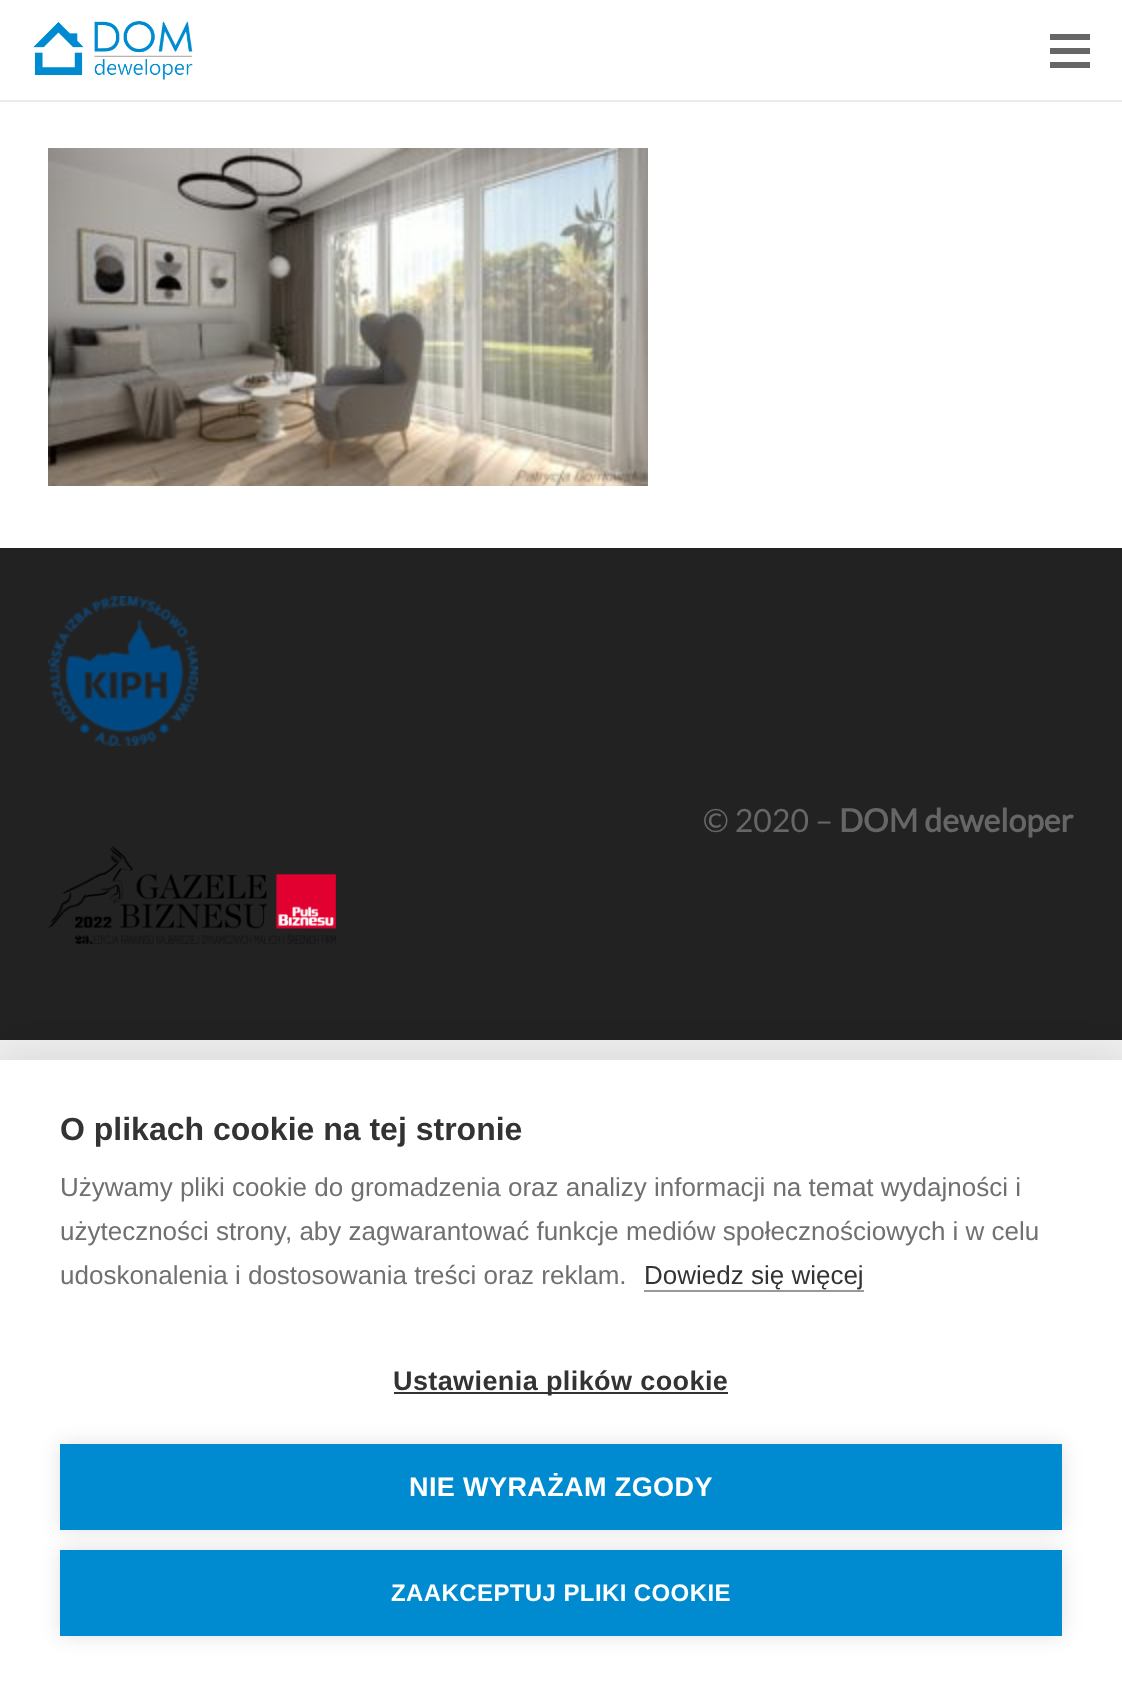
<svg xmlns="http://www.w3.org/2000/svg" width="1122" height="1685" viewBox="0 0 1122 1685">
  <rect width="100%" height="100%" fill="rgb(238,238,238)"/>
  <rect x="0" y="0" width="1122" height="548" fill="rgb(255,255,255)"/>
  <rect x="0" y="100" width="1122" height="2" fill="rgb(235,235,235)"/>
  <image x="33" y="21" width="160" height="59" href="pic1.png"/>
  <rect x="1050" y="48" width="40" height="6" fill="rgb(102,102,102)"/>
  <rect x="1050" y="34" width="40" height="6" fill="rgb(102,102,102)"/>
  <rect x="1050" y="62" width="40" height="6" fill="rgb(102,102,102)"/>
  <image x="48" y="148" width="600" height="338" href="pic2.png"/>
  <rect x="0" y="548" width="1122" height="492" fill="rgb(34,34,34)"/>
  <image x="48" y="596" width="150" height="150" href="pic3.png"/>
  <text x="703" y="832" font-family="Lato" font-size="32" fill="rgb(102,102,102)">© 2020 –</text>
  <text x="839" y="832" font-family="Lato" font-size="32" font-weight="bold" fill="rgb(102,102,102)">DOM deweloper</text>
  <image x="48" y="846" width="288" height="98" href="pic4.png"/>
  <rect x="0" y="1060" width="1122" height="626" fill="rgba(0,0,0,0.1)" filter="blur(20px)"/>
  <rect x="0" y="1060" width="1122" height="625" fill="rgb(255,255,255)"/>
  <text x="60" y="1140" font-family="Liberation Sans" font-size="32" font-weight="bold" fill="rgb(51,51,51)">O plikach cookie na tej stronie</text>
  <g font-family="Liberation Sans" font-size="26" fill="rgb(112,112,112)">
    <text>
      <tspan x="60" y="1196">Używamy pliki cookie do gromadzenia oraz analizy informacji na temat wydajności i</tspan>
      <tspan x="60" y="1240">użyteczności strony, aby zagwarantować funkcje mediów społecznościowych i w celu</tspan>
      <tspan x="60" y="1284">udoskonalenia i dostosowania treści oraz reklam.</tspan>
    </text>
  </g>
  <text x="644" y="1284" font-family="Liberation Sans" font-size="26" fill="rgb(51,51,51)">Dowiedz się więcej</text>
  <rect x="644" y="1290" width="220" height="2" fill="rgb(153,153,153)"/>
  <rect x="394" y="1392" width="334" height="2" fill="rgb(51,51,51)"/>
  <text x="393" y="1390" font-family="Liberation Sans" font-size="27" font-weight="bold" letter-spacing="0.4" fill="rgb(51,51,51)">Ustawienia plików cookie</text>
  <rect x="60" y="1444" width="1002" height="86" fill="rgba(0,0,0,0.12)" filter="blur(10px)"/>
  <rect x="60" y="1444" width="1002" height="86" fill="rgb(0,139,208)"/>
  <text x="409" y="1496" font-family="Liberation Sans" font-size="27" font-weight="bold" letter-spacing="0.4" fill="rgb(255,255,255)">NIE WYRAŻAM ZGODY</text>
  <rect x="60" y="1550" width="1002" height="86" fill="rgba(0,0,0,0.12)" filter="blur(10px)"/>
  <rect x="60" y="1550" width="1002" height="86" fill="rgb(0,139,208)"/>
  <text x="391" y="1601" font-family="Liberation Sans" font-size="24" font-weight="bold" letter-spacing="0.4" fill="rgb(255,255,255)">ZAAKCEPTUJ PLIKI COOKIE</text>
</svg>
